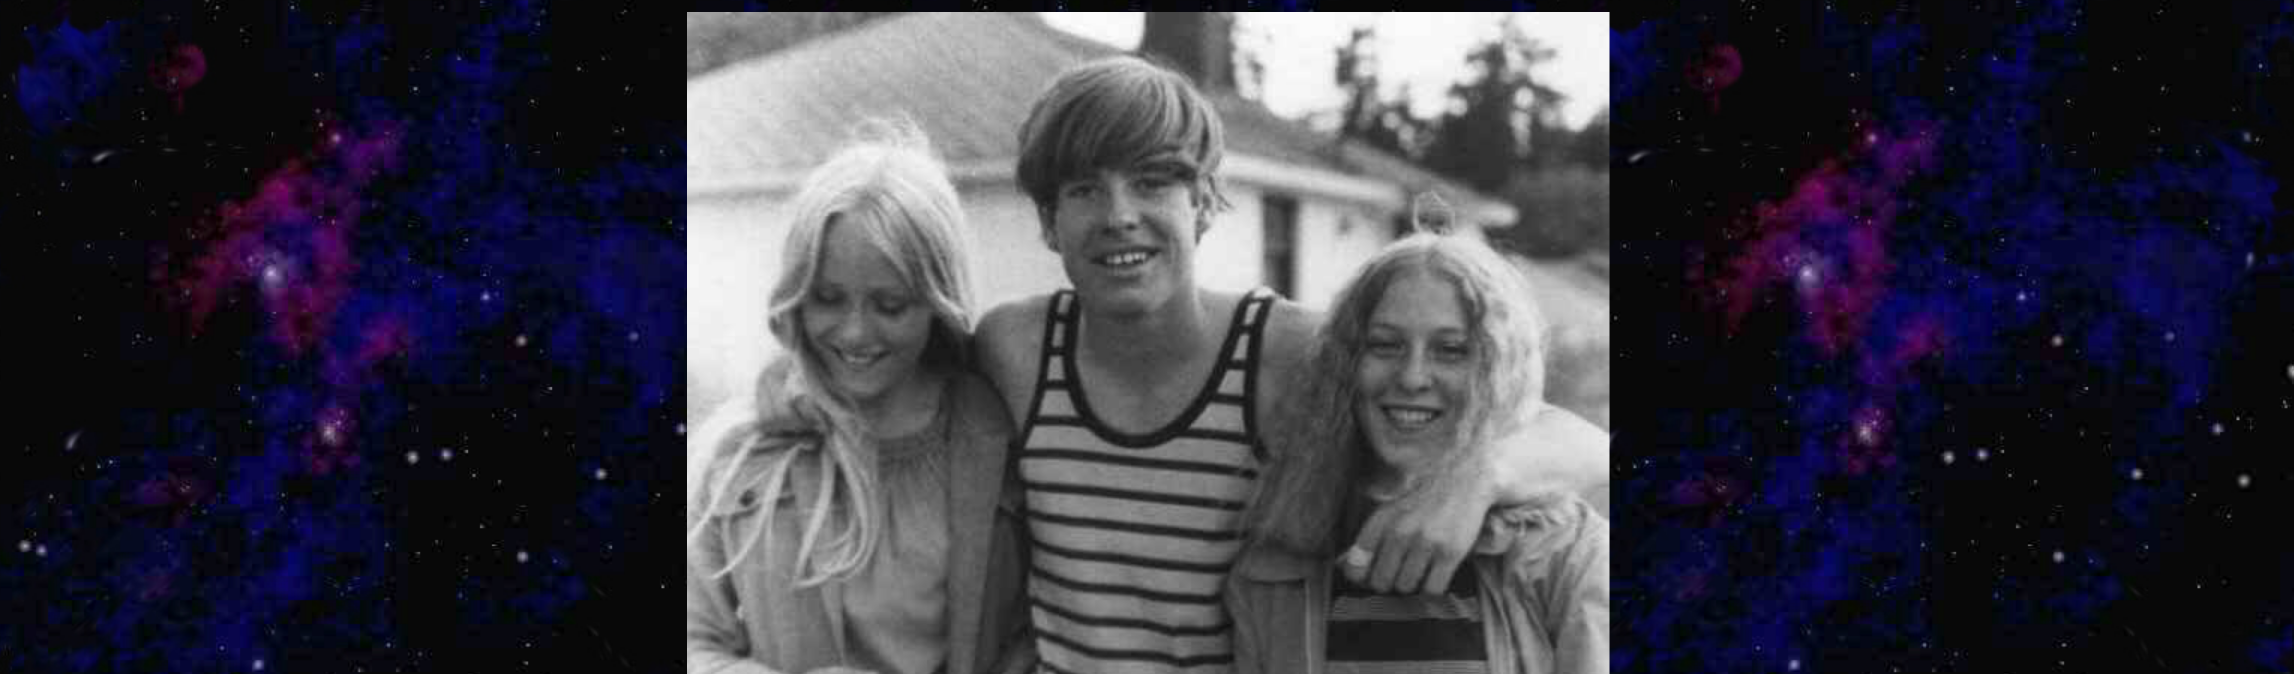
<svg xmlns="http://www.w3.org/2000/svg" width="2294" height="674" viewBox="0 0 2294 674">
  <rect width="100%" height="100%" fill="rgb(255,255,255)"/>
  <image x="0" y="0" width="2294" height="674" href="pic1.png"/>
  <image x="687" y="12" width="923" height="662" href="pic2.png"/>
</svg>
